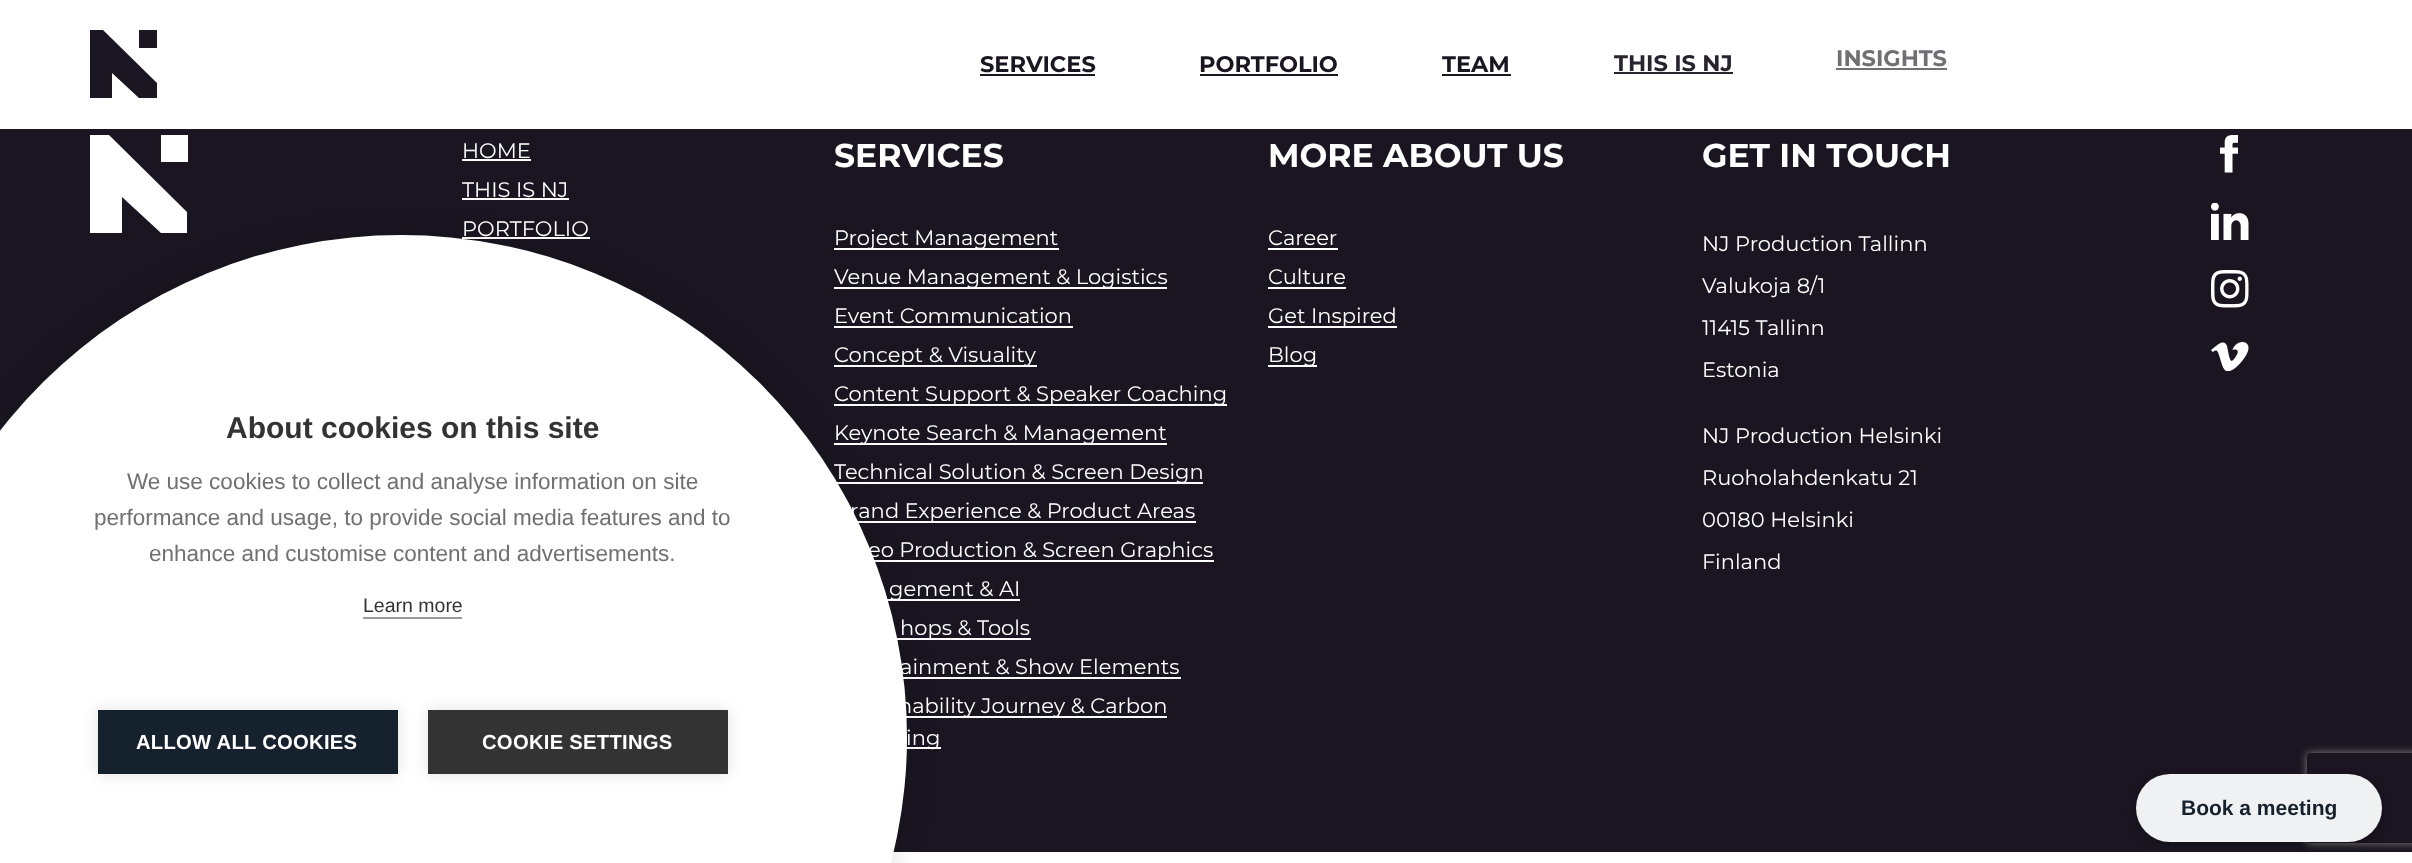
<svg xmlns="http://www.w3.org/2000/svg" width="2412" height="863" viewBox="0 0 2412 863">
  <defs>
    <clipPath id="clip1"><path d="M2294 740H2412V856H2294ZM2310 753H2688C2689.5 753 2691 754.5 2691 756V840C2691 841.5 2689.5 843 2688 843H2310C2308.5 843 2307 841.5 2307 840V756C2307 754.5 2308.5 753 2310 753Z" clip-rule="evenodd"/></clipPath>
  </defs>
  <rect width="100%" height="100%" fill="rgb(255,255,255)"/>
  <path d="M112 98V73L139 98H157V83L103 30H90V98ZM139 30H157V48H139Z" fill="rgb(28,21,34)"/>
  <text x="980" y="72" font-family="Montserrat" font-size="22.5" font-weight="bold" fill="rgb(26,21,32)">SERVICES</text>
  <rect x="980" y="74" width="115" height="2" fill="rgb(26,21,32)"/>
  <text x="1199" y="72" font-family="Montserrat" font-size="22.5" font-weight="bold" fill="rgb(26,21,32)">PORTFOLIO</text>
  <rect x="1200" y="74" width="138" height="2" fill="rgb(26,21,32)"/>
  <text x="1442" y="72" font-family="Montserrat" font-size="22.5" font-weight="bold" fill="rgb(26,21,32)">TEAM</text>
  <rect x="1442" y="74" width="69" height="2" fill="rgb(26,21,32)"/>
  <text x="1614" y="71" font-family="Montserrat" font-size="22.5" font-weight="bold" fill="rgb(40,35,45)">THIS IS NJ</text>
  <rect x="1614" y="72" width="119" height="2" fill="rgb(40,35,45)"/>
  <text x="1836" y="66" font-family="Montserrat" font-size="22.5" font-weight="bold" fill="rgb(113,110,116)">INSIGHTS</text>
  <rect x="1836" y="68" width="111" height="2" fill="rgb(113,110,116)"/>
  <rect x="0" y="129" width="2412" height="723" fill="rgb(26,21,32)"/>
  <path d="M122 233V197L161 233H187V212L109 135H90V233ZM161 135H188V162H161Z" fill="rgb(255,255,255)"/>
  <rect x="462" y="198" width="107" height="2" fill="rgb(255,255,255)"/>
  <rect x="462" y="237" width="128" height="2" fill="rgb(255,255,255)"/>
  <rect x="834" y="248" width="225" height="2" fill="rgb(255,255,255)"/>
  <rect x="834" y="287" width="333" height="2" fill="rgb(255,255,255)"/>
  <rect x="834" y="326" width="239" height="2" fill="rgb(255,255,255)"/>
  <rect x="834" y="365" width="203" height="2" fill="rgb(255,255,255)"/>
  <rect x="834" y="404" width="393" height="2" fill="rgb(255,255,255)"/>
  <rect x="834" y="443" width="333" height="2" fill="rgb(255,255,255)"/>
  <rect x="834" y="482" width="369" height="2" fill="rgb(255,255,255)"/>
  <rect x="857" y="521" width="339" height="2" fill="rgb(255,255,255)"/>
  <rect x="874" y="560" width="340" height="2" fill="rgb(255,255,255)"/>
  <rect x="887" y="599" width="133" height="2" fill="rgb(255,255,255)"/>
  <rect x="897" y="638" width="134" height="2" fill="rgb(255,255,255)"/>
  <rect x="903" y="677" width="278" height="2" fill="rgb(255,255,255)"/>
  <rect x="906" y="716" width="261" height="2" fill="rgb(255,255,255)"/>
  <rect x="906" y="747" width="35" height="2" fill="rgb(255,255,255)"/>
  <rect x="-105" y="236" width="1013" height="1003" rx="501.5" fill="rgba(0,0,0,0.1)" filter="blur(15px)"/>
  <ellipse cx="401" cy="737" rx="506" ry="502" fill="rgb(255,255,255)"/>
  <text x="226" y="438" font-family="Liberation Sans" font-size="30" font-weight="bold" fill="rgb(51,51,51)">About cookies on this site</text>
  <g font-family="Liberation Sans" font-size="22.5" fill="rgb(113,110,116)">
    <text x="127" y="489">We use cookies to collect and analyse information on site</text>
    <text x="94" y="525">performance and usage, to provide social media features and to</text>
    <text x="149" y="561">enhance and customise content and advertisements.</text>
  </g>
  <text x="363" y="612" font-family="Liberation Sans" font-size="19.5" fill="rgb(51,51,51)">Learn more</text>
  <rect x="363" y="617" width="99" height="2" fill="rgb(153,153,153)"/>
  <rect x="98" y="710" width="300" height="64" fill="rgba(0,0,0,0.12)" filter="blur(7.5px)"/>
  <rect x="98" y="710" width="300" height="64" fill="rgb(22,33,46)"/>
  <text x="136" y="749" font-family="Liberation Sans" font-size="20.25" font-weight="bold" letter-spacing="0.25" fill="rgb(255,255,255)">ALLOW ALL COOKIES</text>
  <rect x="428" y="710" width="300" height="64" fill="rgba(0,0,0,0.12)" filter="blur(7.5px)"/>
  <rect x="428" y="710" width="300" height="64" fill="rgb(51,51,51)"/>
  <text x="482" y="749" font-family="Liberation Sans" font-size="20.25" font-weight="bold" letter-spacing="0.25" fill="rgb(255,255,255)">COOKIE SETTINGS</text>
  <text x="462" y="158" font-family="Montserrat" font-size="21" fill="rgb(255,255,255)">HOME</text>
  <rect x="462" y="159" width="69" height="2" fill="rgb(255,255,255)"/>
  <g font-family="Montserrat" font-size="21" fill="rgb(255,255,255)">
    <text>
      <tspan x="462" y="197">THIS IS NJ</tspan>
      <tspan x="462" y="236">PORTFOLIO</tspan>
    </text>
  </g>
  <text x="834" y="167" font-family="Montserrat" font-size="33" font-weight="bold" fill="rgb(255,255,255)">SERVICES</text>
  <g font-family="Montserrat" font-size="21" fill="rgb(255,255,255)">
    <text>
      <tspan x="834" y="245">Project Management</tspan>
      <tspan x="834" y="284">Venue Management &amp; Logistics</tspan>
      <tspan x="834" y="323">Event Communication</tspan>
      <tspan x="834" y="362">Concept &amp; Visuality</tspan>
      <tspan x="834" y="401">Content Support &amp; Speaker Coaching</tspan>
      <tspan x="834" y="440">Keynote Search &amp; Management</tspan>
      <tspan x="834" y="479">Technical Solution &amp; Screen Design</tspan>
    </text>
    <text x="850" y="518">rand Experience &amp; Product Areas</text>
    <text x="868" y="557">eo Production &amp; Screen Graphics</text>
    <text x="889" y="596">gement &amp; AI</text>
    <text>
      <tspan x="900" y="635">hops &amp; Tools</tspan>
      <tspan x="900" y="674">ainment &amp; Show Elements</tspan>
    </text>
    <text x="898" y="713">nability Journey &amp; Carbon</text>
    <text x="906" y="745">ing</text>
  </g>
  <text x="1268" y="167" font-family="Montserrat" font-size="33" font-weight="bold" fill="rgb(255,255,255)">MORE ABOUT US</text>
  <text x="1268" y="245" font-family="Montserrat" font-size="21" fill="rgb(255,255,255)">Career</text>
  <rect x="1268" y="248" width="70" height="2" fill="rgb(255,255,255)"/>
  <text x="1268" y="284" font-family="Montserrat" font-size="21" fill="rgb(255,255,255)">Culture</text>
  <rect x="1268" y="287" width="78" height="2" fill="rgb(255,255,255)"/>
  <rect x="1268" y="326" width="129" height="2" fill="rgb(255,255,255)"/>
  <text x="1268" y="323" font-family="Montserrat" font-size="21" fill="rgb(255,255,255)">Get Inspired</text>
  <rect x="1268" y="365" width="49" height="2" fill="rgb(255,255,255)"/>
  <text x="1268" y="362" font-family="Montserrat" font-size="21" fill="rgb(255,255,255)">Blog</text>
  <text x="1702" y="167" font-family="Montserrat" font-size="33" font-weight="bold" fill="rgb(255,255,255)">GET IN TOUCH</text>
  <g font-family="Montserrat" font-size="21" fill="rgb(255,255,255)">
    <text x="1702" y="251">NJ Production Tallinn</text>
    <text x="1702" y="293">Valukoja 8/1</text>
    <text x="1702" y="335">11415 Tallinn</text>
    <text x="1702" y="377">Estonia</text>
    <text x="1702" y="443">NJ Production Helsinki</text>
    <text x="1702" y="485">Ruoholahdenkatu 21</text>
    <text x="1702" y="527">00180 Helsinki</text>
    <text x="1702" y="569">Finland</text>
  </g>
  <image x="2220" y="135" width="18" height="38" href="pic1.png"/>
  <image x="2211" y="203" width="38" height="37" href="pic2.png"/>
  <image x="2211" y="270" width="38" height="38" href="pic3.png"/>
  <image x="2211" y="342" width="38" height="29" href="pic4.png"/>
  <rect x="2136" y="777" width="246" height="68" rx="34" fill="rgba(0,0,0,0.25)" filter="blur(4px)"/>
  <g clip-path="url(#clip1)">
    <rect x="2307" y="753" width="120" height="90" rx="3" fill="rgb(128,128,128)" filter="blur(4px)"/>
  </g>
  <rect x="2136" y="774" width="246" height="68" rx="34" fill="rgb(240,241,242)"/>
  <text x="2181" y="815" font-family="Liberation Sans" font-size="21" font-weight="bold" fill="rgb(22,33,46)">Book a meeting</text>
</svg>
